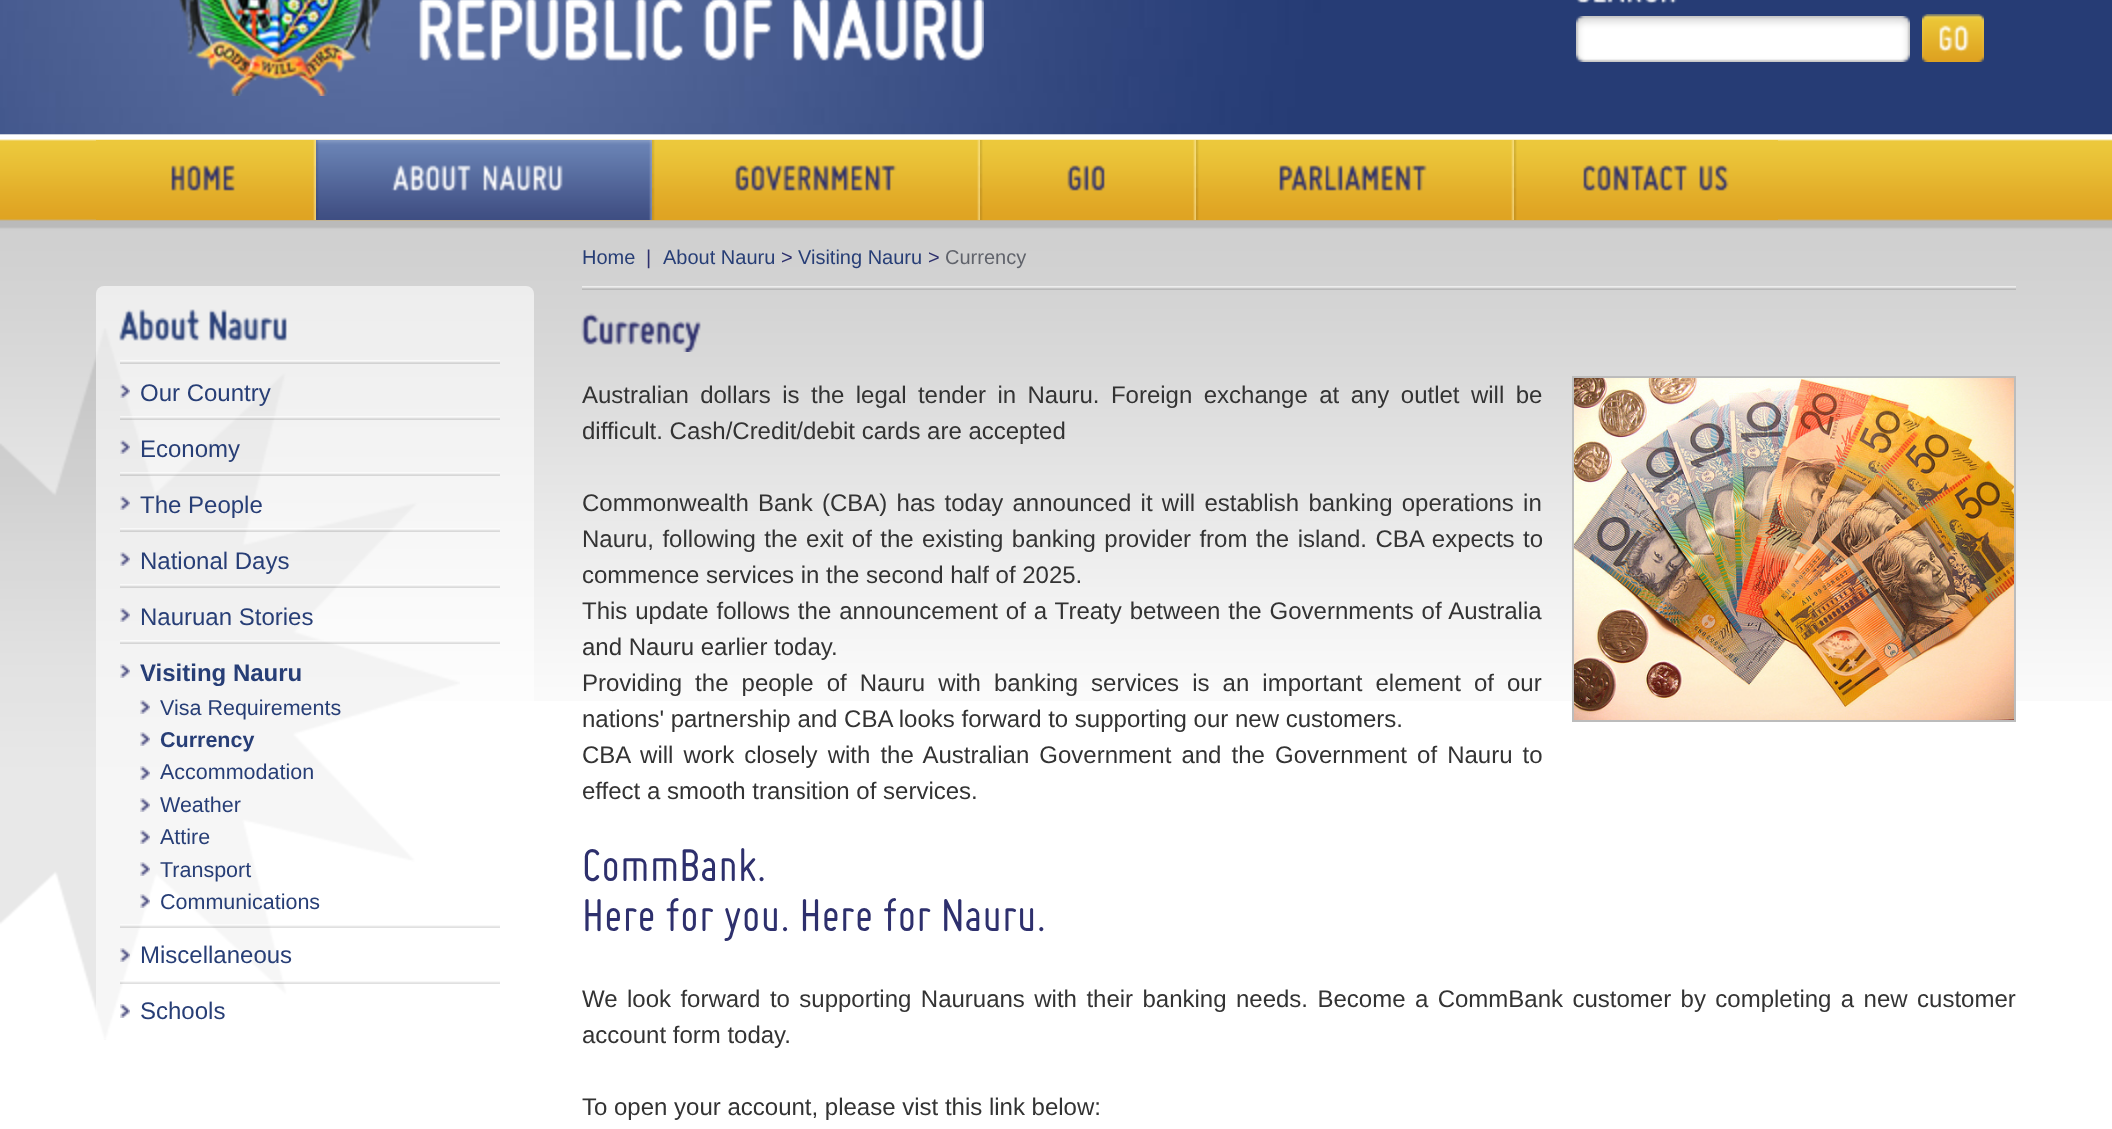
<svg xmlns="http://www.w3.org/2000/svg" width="2112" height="1129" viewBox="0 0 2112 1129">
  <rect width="100%" height="100%" fill="rgb(255,255,255)"/>
  <image x="0" y="134" width="2112" height="567" href="pic1.png"/>
  <image x="0" y="0" width="2112" height="134" href="pic2.png"/>
  <image x="179" y="0" width="805" height="96" href="pic3.png"/>
  <image x="1576" y="0" width="101" height="4" href="pic4.png"/>
  <image x="1576" y="16" width="334" height="46" href="pic5.png"/>
  <image x="1922" y="14" width="62" height="48" href="pic6.png"/>
  <image x="96" y="140" width="220" height="80" href="pic7.png"/>
  <image x="316" y="140" width="336" height="80" href="pic8.png"/>
  <image x="652" y="140" width="328" height="80" href="pic9.png"/>
  <image x="980" y="140" width="216" height="80" href="pic10.png"/>
  <image x="1196" y="140" width="318" height="80" href="pic11.png"/>
  <image x="1514" y="140" width="264" height="80" href="pic12.png"/>
  <image x="0" y="328" width="460" height="712" href="pic13.png"/>
  <image x="96" y="286" width="438" height="753" href="pic14.png"/>
  <image x="119" y="309" width="82" height="32" href="pic15.png"/>
  <image x="209" y="309" width="78" height="32" href="pic16.png"/>
  <image x="120" y="360" width="380" height="4" href="pic17.png"/>
  <image x="120" y="384" width="10" height="14" href="pic18.png"/>
  <text x="140" y="401" font-family="Liberation Sans" font-size="24" fill="rgb(39,62,118)">Our Country</text>
  <image x="120" y="416" width="380" height="4" href="pic19.png"/>
  <image x="120" y="440" width="10" height="14" href="pic20.png"/>
  <text x="140" y="457" font-family="Liberation Sans" font-size="24" fill="rgb(39,62,118)">Economy</text>
  <image x="120" y="472" width="380" height="4" href="pic21.png"/>
  <image x="120" y="496" width="10" height="14" href="pic22.png"/>
  <text x="140" y="513" font-family="Liberation Sans" font-size="24" fill="rgb(39,62,118)">The People</text>
  <image x="120" y="528" width="380" height="4" href="pic23.png"/>
  <image x="120" y="552" width="10" height="14" href="pic24.png"/>
  <text x="140" y="569" font-family="Liberation Sans" font-size="24" fill="rgb(39,62,118)">National Days</text>
  <image x="120" y="584" width="380" height="4" href="pic25.png"/>
  <image x="120" y="608" width="10" height="14" href="pic26.png"/>
  <text x="140" y="625" font-family="Liberation Sans" font-size="24" fill="rgb(39,62,118)">Nauruan Stories</text>
  <image x="120" y="640" width="380" height="4" href="pic27.png"/>
  <image x="120" y="664" width="10" height="14" href="pic28.png"/>
  <text x="140" y="681" font-family="Liberation Sans" font-size="24" font-weight="bold" fill="rgb(39,62,118)">Visiting Nauru</text>
  <image x="140" y="700" width="10" height="14" href="pic29.png"/>
  <text x="160" y="715" font-family="Liberation Sans" font-size="21.5" fill="rgb(39,62,118)">Visa Requirements</text>
  <image x="140" y="732" width="10" height="14" href="pic30.png"/>
  <text x="160" y="747" font-family="Liberation Sans" font-size="21.5" font-weight="bold" fill="rgb(39,62,118)">Currency</text>
  <image x="140" y="766" width="10" height="14" href="pic31.png"/>
  <text x="160" y="779" font-family="Liberation Sans" font-size="21.5" fill="rgb(39,62,118)">Accommodation</text>
  <image x="140" y="798" width="10" height="14" href="pic32.png"/>
  <text x="160" y="812" font-family="Liberation Sans" font-size="21.5" fill="rgb(39,62,118)">Weather</text>
  <image x="140" y="830" width="10" height="14" href="pic32.png"/>
  <text x="160" y="844" font-family="Liberation Sans" font-size="21.5" fill="rgb(39,62,118)">Attire</text>
  <image x="140" y="862" width="10" height="14" href="pic32.png"/>
  <text x="160" y="877" font-family="Liberation Sans" font-size="21.5" fill="rgb(39,62,118)">Transport</text>
  <image x="140" y="894" width="10" height="14" href="pic33.png"/>
  <text x="160" y="909" font-family="Liberation Sans" font-size="21.5" fill="rgb(39,62,118)">Communications</text>
  <image x="120" y="924" width="380" height="4" href="pic34.png"/>
  <image x="120" y="948" width="10" height="14" href="pic35.png"/>
  <text x="140" y="963" font-family="Liberation Sans" font-size="24" fill="rgb(39,62,118)">Miscellaneous</text>
  <image x="120" y="980" width="380" height="4" href="pic36.png"/>
  <image x="120" y="1004" width="10" height="14" href="pic37.png"/>
  <text x="140" y="1019" font-family="Liberation Sans" font-size="24" fill="rgb(39,62,118)">Schools</text>
  <text x="582" y="264" font-family="Liberation Sans" font-size="20" fill="rgb(39,62,118)">Home</text>
  <text x="646" y="264" font-family="Liberation Sans" font-size="20" fill="rgb(46,48,109)">|</text>
  <text x="663" y="264" font-family="Liberation Sans" font-size="20" fill="rgb(39,62,118)">About Nauru</text>
  <text x="781" y="264" font-family="Liberation Sans" font-size="20" fill="rgb(46,48,109)">&gt;</text>
  <text x="798" y="264" font-family="Liberation Sans" font-size="20" fill="rgb(39,62,118)">Visiting Nauru</text>
  <text x="928" y="264" font-family="Liberation Sans" font-size="20" fill="rgb(46,48,109)">&gt;</text>
  <text x="945" y="264" font-family="Liberation Sans" font-size="20" fill="rgb(96,99,107)">Currency</text>
  <image x="582" y="286" width="1434" height="4" href="pic38.png"/>
  <image x="581" y="313" width="120" height="39" href="pic39.png"/>
  <g font-family="Liberation Sans" font-size="24" fill="rgb(51,51,51)">
    <text>
      <tspan x="582" y="403" word-spacing="4.75">Australian dollars is the legal tender in Nauru. Foreign exchange at any outlet will be</tspan>
      <tspan x="582" y="439">difficult. Cash/Credit/debit cards are accepted</tspan>
    </text>
  </g>
  <rect x="1573" y="377" width="442" height="344" fill="none" stroke="rgb(188,188,188)" stroke-width="2"/>
  <image x="1574" y="378" width="440" height="342" href="pic40.png"/>
  <g font-family="Liberation Sans" font-size="24" fill="rgb(51,51,51)">
    <text>
      <tspan x="582" y="511" word-spacing="2.6">Commonwealth Bank (CBA) has today announced it will establish banking operations in</tspan>
      <tspan x="582" y="547" word-spacing="1.75">Nauru, following the exit of the existing banking provider from the island. CBA expects to</tspan>
      <tspan x="582" y="583">commence services in the second half of 2025.</tspan>
      <tspan x="582" y="619" word-spacing="1.25">This update follows the announcement of a Treaty between the Governments of Australia</tspan>
      <tspan x="582" y="655">and Nauru earlier today.</tspan>
      <tspan x="582" y="691" word-spacing="6.4">Providing the people of Nauru with banking services is an important element of our</tspan>
      <tspan x="582" y="727">nations' partnership and CBA looks forward to supporting our new customers.</tspan>
      <tspan x="582" y="763" word-spacing="3.4">CBA will work closely with the Australian Government and the Government of Nauru to</tspan>
      <tspan x="582" y="799">effect a smooth transition of services.</tspan>
    </text>
  </g>
  <g font-family="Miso" font-size="50" font-style="italic" fill="rgb(46,48,109)">
    <text>
      <tspan x="582" y="881">CommBank.</tspan>
      <tspan x="582" y="931">Here for you. Here for Nauru.</tspan>
    </text>
  </g>
  <g font-family="Liberation Sans" font-size="24" fill="rgb(51,51,51)">
    <text>
      <tspan x="582" y="1007" word-spacing="2.75">We look forward to supporting Nauruans with their banking needs. Become a CommBank customer by completing a new customer</tspan>
      <tspan x="582" y="1043">account form today.</tspan>
    </text>
    <text x="582" y="1115">To open your account, please vist this link below:</text>
  </g>
</svg>
